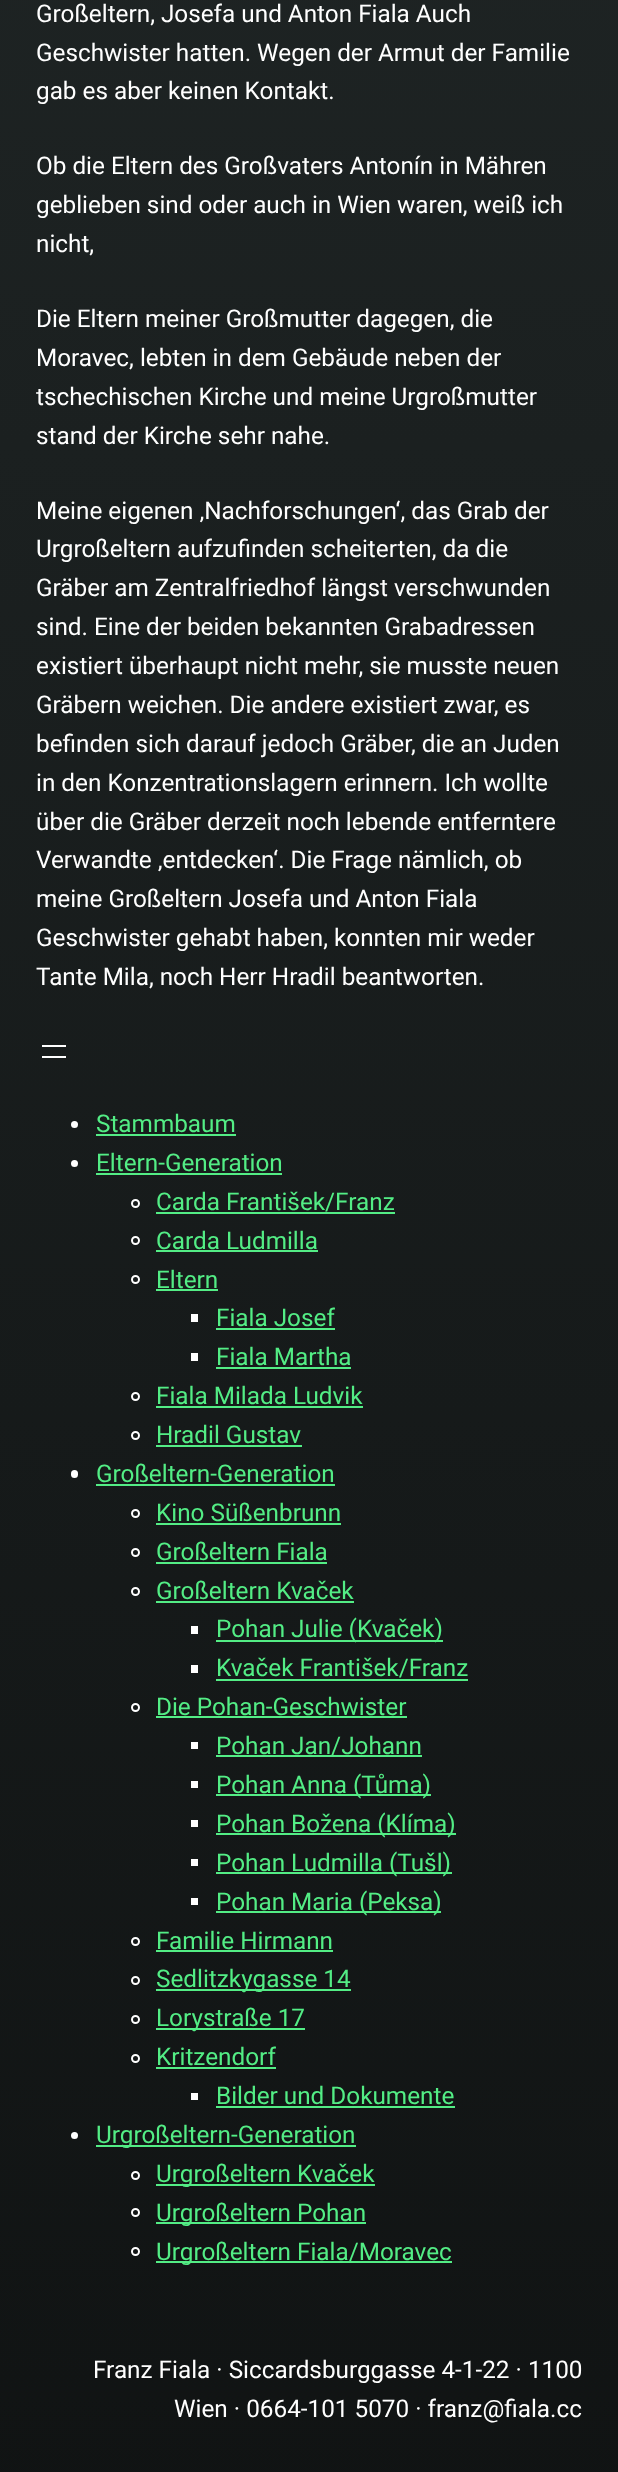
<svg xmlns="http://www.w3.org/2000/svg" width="618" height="2472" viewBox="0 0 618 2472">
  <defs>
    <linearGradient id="g1" gradientUnits="userSpaceOnUse" x1="309" y1="-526" x2="309" y2="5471"><stop offset="0" stop-color="rgb(32,38,38)"/><stop offset="1" stop-color="rgb(1,1,1)"/></linearGradient>
  </defs>
  <rect width="100%" height="100%" fill="rgb(255,255,255)"/>
  <rect x="0" y="0" width="618" height="2472" fill="url(#g1)"/>
  <g font-family="Roboto" font-size="24.3" fill="rgb(255,255,255)">
    <text>
      <tspan x="36" y="22">Großeltern, Josefa und Anton Fiala Auch</tspan>
      <tspan x="36" y="61">Geschwister hatten. Wegen der Armut der Familie</tspan>
      <tspan x="36" y="99">gab es aber keinen Kontakt.</tspan>
    </text>
    <text>
      <tspan x="36" y="174">Ob die Eltern des Großvaters Antonín in Mähren</tspan>
      <tspan x="36" y="213">geblieben sind oder auch in Wien waren, weiß ich</tspan>
      <tspan x="36" y="252">nicht,</tspan>
    </text>
    <text>
      <tspan x="36" y="327">Die Eltern meiner Großmutter dagegen, die</tspan>
      <tspan x="36" y="366">Moravec, lebten in dem Gebäude neben der</tspan>
      <tspan x="36" y="405">tschechischen Kirche und meine Urgroßmutter</tspan>
      <tspan x="36" y="444">stand der Kirche sehr nahe.</tspan>
    </text>
    <text>
      <tspan x="36" y="519">Meine eigenen ‚Nachforschungen‘, das Grab der</tspan>
      <tspan x="36" y="557">Urgroßeltern aufzufinden scheiterten, da die</tspan>
      <tspan x="36" y="596">Gräber am Zentralfriedhof längst verschwunden</tspan>
      <tspan x="36" y="635">sind. Eine der beiden bekannten Grabadressen</tspan>
      <tspan x="36" y="674">existiert überhaupt nicht mehr, sie musste neuen</tspan>
      <tspan x="36" y="713">Gräbern weichen. Die andere existiert zwar, es</tspan>
      <tspan x="36" y="752">befinden sich darauf jedoch Gräber, die an Juden</tspan>
      <tspan x="36" y="791">in den Konzentrationslagern erinnern. Ich wollte</tspan>
      <tspan x="36" y="830">über die Gräber derzeit noch lebende entferntere</tspan>
      <tspan x="36" y="868">Verwandte ‚entdecken‘. Die Frage nämlich, ob</tspan>
      <tspan x="36" y="907">meine Großeltern Josefa und Anton Fiala</tspan>
      <tspan x="36" y="946">Geschwister gehabt haben, konnten mir weder</tspan>
      <tspan x="36" y="985">Tante Mila, noch Herr Hradil beantworten.</tspan>
    </text>
  </g>
  <rect x="42" y="1045" width="24" height="2" fill="rgb(255,255,255)"/>
  <rect x="42" y="1056" width="24" height="2" fill="rgb(255,255,255)"/>
  <circle cx="74.5" cy="1124.5" r="3.5" fill="rgb(255,255,255)"/>
  <text x="96" y="1132" font-family="Roboto" font-size="24.3" fill="rgb(83,237,133)">Stammbaum</text>
  <rect x="96" y="1134" width="140" height="2" fill="rgb(83,237,133)"/>
  <circle cx="74.5" cy="1163.5" r="3.5" fill="rgb(255,255,255)"/>
  <text x="96" y="1171" font-family="Roboto" font-size="24.3" fill="rgb(83,237,133)">Eltern-Generation</text>
  <rect x="96" y="1173" width="186" height="2" fill="rgb(83,237,133)"/>
  <circle cx="135.5" cy="1203.5" r="3.5" fill="none" stroke="rgb(255,255,255)" stroke-width="2"/>
  <text x="156" y="1210" font-family="Roboto" font-size="24.3" fill="rgb(83,237,133)">Carda František/Franz</text>
  <rect x="156" y="1212" width="239" height="2" fill="rgb(83,237,133)"/>
  <circle cx="135.5" cy="1240.5" r="3.5" fill="none" stroke="rgb(255,255,255)" stroke-width="2"/>
  <text x="156" y="1249" font-family="Roboto" font-size="24.3" fill="rgb(83,237,133)">Carda Ludmilla</text>
  <rect x="156" y="1250" width="162" height="2" fill="rgb(83,237,133)"/>
  <circle cx="135.5" cy="1279.5" r="3.5" fill="none" stroke="rgb(255,255,255)" stroke-width="2"/>
  <text x="156" y="1288" font-family="Roboto" font-size="24.3" fill="rgb(83,237,133)">Eltern</text>
  <rect x="156" y="1289" width="62" height="2" fill="rgb(83,237,133)"/>
  <rect x="191" y="1314" width="7" height="8" fill="rgb(255,255,255)"/>
  <text x="216" y="1326" font-family="Roboto" font-size="24.3" fill="rgb(83,237,133)">Fiala Josef</text>
  <rect x="216" y="1328" width="119" height="2" fill="rgb(83,237,133)"/>
  <rect x="191" y="1353" width="7" height="8" fill="rgb(255,255,255)"/>
  <text x="216" y="1365" font-family="Roboto" font-size="24.3" fill="rgb(83,237,133)">Fiala Martha</text>
  <rect x="216" y="1367" width="135" height="2" fill="rgb(83,237,133)"/>
  <circle cx="135.5" cy="1396.5" r="3.5" fill="none" stroke="rgb(255,255,255)" stroke-width="2"/>
  <text x="156" y="1404" font-family="Roboto" font-size="24.3" fill="rgb(83,237,133)">Fiala Milada Ludvik</text>
  <rect x="156" y="1406" width="207" height="2" fill="rgb(83,237,133)"/>
  <circle cx="135.5" cy="1435.5" r="3.5" fill="none" stroke="rgb(255,255,255)" stroke-width="2"/>
  <text x="156" y="1443" font-family="Roboto" font-size="24.3" fill="rgb(83,237,133)">Hradil Gustav</text>
  <rect x="156" y="1445" width="146" height="2" fill="rgb(83,237,133)"/>
  <rect x="71" y="1470" width="7" height="8" rx="3.5" fill="rgb(255,255,255)"/>
  <text x="96" y="1482" font-family="Roboto" font-size="24.3" fill="rgb(83,237,133)">Großeltern-Generation</text>
  <rect x="96" y="1484" width="239" height="2" fill="rgb(83,237,133)"/>
  <circle cx="135.5" cy="1513.5" r="3.5" fill="none" stroke="rgb(255,255,255)" stroke-width="2"/>
  <text x="156" y="1521" font-family="Roboto" font-size="24.3" fill="rgb(83,237,133)">Kino Süßenbrunn</text>
  <rect x="156" y="1523" width="185" height="2" fill="rgb(83,237,133)"/>
  <circle cx="135.5" cy="1552.5" r="3.5" fill="none" stroke="rgb(255,255,255)" stroke-width="2"/>
  <text x="156" y="1560" font-family="Roboto" font-size="24.3" fill="rgb(83,237,133)">Großeltern Fiala</text>
  <rect x="156" y="1562" width="171" height="2" fill="rgb(83,237,133)"/>
  <circle cx="135.5" cy="1591.5" r="3.5" fill="none" stroke="rgb(255,255,255)" stroke-width="2"/>
  <text x="156" y="1599" font-family="Roboto" font-size="24.3" fill="rgb(83,237,133)">Großeltern Kvaček</text>
  <rect x="156" y="1601" width="198" height="2" fill="rgb(83,237,133)"/>
  <rect x="191" y="1626" width="7" height="8" fill="rgb(255,255,255)"/>
  <rect x="216" y="1640" width="227" height="2" fill="rgb(83,237,133)"/>
  <text x="216" y="1637" font-family="Roboto" font-size="24.3" fill="rgb(83,237,133)">Pohan Julie (Kvaček)</text>
  <rect x="191" y="1665" width="7" height="8" fill="rgb(255,255,255)"/>
  <text x="216" y="1676" font-family="Roboto" font-size="24.3" fill="rgb(83,237,133)">Kvaček František/Franz</text>
  <rect x="216" y="1679" width="252" height="2" fill="rgb(83,237,133)"/>
  <circle cx="135.5" cy="1707.5" r="3.5" fill="none" stroke="rgb(255,255,255)" stroke-width="2"/>
  <text x="156" y="1715" font-family="Roboto" font-size="24.3" fill="rgb(83,237,133)">Die Pohan-Geschwister</text>
  <rect x="156" y="1716" width="251" height="2" fill="rgb(83,237,133)"/>
  <rect x="191" y="1742" width="7" height="7" fill="rgb(255,255,255)"/>
  <rect x="216" y="1755" width="206" height="2" fill="rgb(83,237,133)"/>
  <text x="216" y="1754" font-family="Roboto" font-size="24.3" fill="rgb(83,237,133)">Pohan Jan/Johann</text>
  <rect x="191" y="1781" width="7" height="7" fill="rgb(255,255,255)"/>
  <rect x="216" y="1794" width="215" height="2" fill="rgb(83,237,133)"/>
  <text x="216" y="1793" font-family="Roboto" font-size="24.3" fill="rgb(83,237,133)">Pohan Anna (Tůma)</text>
  <rect x="191" y="1820" width="7" height="7" fill="rgb(255,255,255)"/>
  <rect x="216" y="1833" width="240" height="2" fill="rgb(83,237,133)"/>
  <text x="216" y="1832" font-family="Roboto" font-size="24.3" fill="rgb(83,237,133)">Pohan Božena (Klíma)</text>
  <rect x="191" y="1859" width="7" height="7" fill="rgb(255,255,255)"/>
  <rect x="216" y="1872" width="236" height="2" fill="rgb(83,237,133)"/>
  <text x="216" y="1871" font-family="Roboto" font-size="24.3" fill="rgb(83,237,133)">Pohan Ludmilla (Tušl)</text>
  <rect x="191" y="1898" width="7" height="7" fill="rgb(255,255,255)"/>
  <rect x="216" y="1911" width="225" height="2" fill="rgb(83,237,133)"/>
  <text x="216" y="1910" font-family="Roboto" font-size="24.3" fill="rgb(83,237,133)">Pohan Maria (Peksa)</text>
  <circle cx="135.5" cy="1941.5" r="3.5" fill="none" stroke="rgb(255,255,255)" stroke-width="2"/>
  <text x="156" y="1949" font-family="Roboto" font-size="24.3" fill="rgb(83,237,133)">Familie Hirmann</text>
  <rect x="156" y="1950" width="177" height="2" fill="rgb(83,237,133)"/>
  <circle cx="135.5" cy="1980.5" r="3.5" fill="none" stroke="rgb(255,255,255)" stroke-width="2"/>
  <rect x="156" y="1989" width="195" height="2" fill="rgb(83,237,133)"/>
  <text x="156" y="1987" font-family="Roboto" font-size="24.3" fill="rgb(83,237,133)">Sedlitzkygasse 14</text>
  <circle cx="135.5" cy="2019.5" r="3.5" fill="none" stroke="rgb(255,255,255)" stroke-width="2"/>
  <rect x="156" y="2028" width="149" height="2" fill="rgb(83,237,133)"/>
  <text x="156" y="2026" font-family="Roboto" font-size="24.3" fill="rgb(83,237,133)">Lorystraße 17</text>
  <circle cx="135.5" cy="2058.5" r="3.5" fill="none" stroke="rgb(255,255,255)" stroke-width="2"/>
  <text x="156" y="2065" font-family="Roboto" font-size="24.3" fill="rgb(83,237,133)">Kritzendorf</text>
  <rect x="156" y="2067" width="120" height="2" fill="rgb(83,237,133)"/>
  <rect x="191" y="2093" width="7" height="7" fill="rgb(255,255,255)"/>
  <text x="216" y="2104" font-family="Roboto" font-size="24.3" fill="rgb(83,237,133)">Bilder und Dokumente</text>
  <rect x="216" y="2106" width="239" height="2" fill="rgb(83,237,133)"/>
  <circle cx="74.5" cy="2135.5" r="3.5" fill="rgb(255,255,255)"/>
  <rect x="96" y="2145" width="260" height="2" fill="rgb(83,237,133)"/>
  <text x="96" y="2143" font-family="Roboto" font-size="24.3" fill="rgb(83,237,133)">Urgroßeltern-Generation</text>
  <circle cx="135.5" cy="2175.5" r="3.5" fill="none" stroke="rgb(255,255,255)" stroke-width="2"/>
  <rect x="156" y="2184" width="219" height="2" fill="rgb(83,237,133)"/>
  <text x="156" y="2182" font-family="Roboto" font-size="24.3" fill="rgb(83,237,133)">Urgroßeltern Kvaček</text>
  <circle cx="135.5" cy="2212.5" r="3.5" fill="none" stroke="rgb(255,255,255)" stroke-width="2"/>
  <rect x="156" y="2222" width="210" height="2" fill="rgb(83,237,133)"/>
  <text x="156" y="2221" font-family="Roboto" font-size="24.3" fill="rgb(83,237,133)">Urgroßeltern Pohan</text>
  <circle cx="135.5" cy="2251.5" r="3.5" fill="none" stroke="rgb(255,255,255)" stroke-width="2"/>
  <rect x="156" y="2261" width="296" height="2" fill="rgb(83,237,133)"/>
  <text x="156" y="2260" font-family="Roboto" font-size="24.3" fill="rgb(83,237,133)">Urgroßeltern Fiala/Moravec</text>
  <g font-family="Roboto" font-size="24.3" fill="rgb(255,255,255)">
    <text x="93" y="2378">Franz Fiala · Siccardsburggasse 4-1-22 · 1100</text>
    <text x="174" y="2417">Wien · 0664-101 5070 · franz@fiala.cc</text>
  </g>
</svg>
